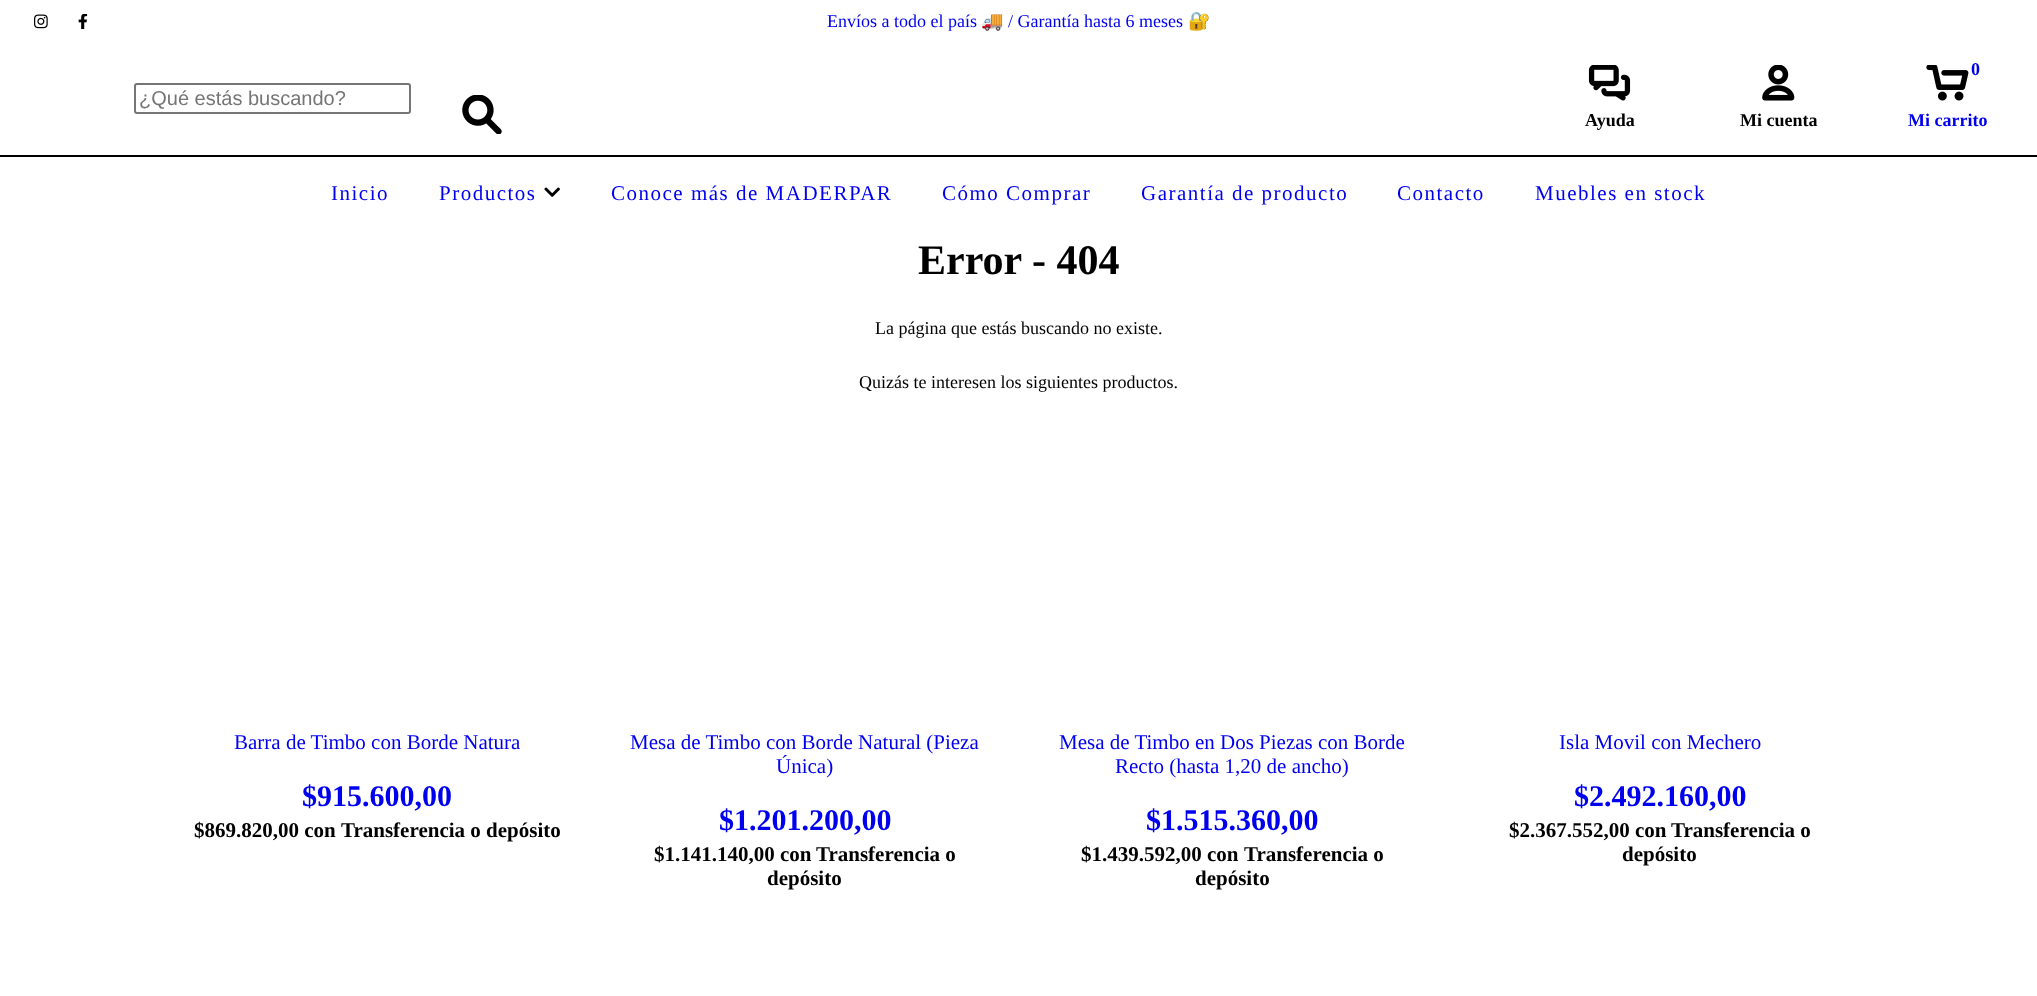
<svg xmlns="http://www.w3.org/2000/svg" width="2037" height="996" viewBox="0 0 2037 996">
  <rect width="100%" height="100%" fill="rgb(255,255,255)"/>
  <image x="34" y="14" width="14" height="15" href="pic1.png"/>
  <image x="78" y="14" width="10" height="15" href="pic2.png"/>
  <text x="827" y="27" font-family="Liberation Serif" font-size="18" fill="rgb(0,0,238)">Envíos a todo el país</text>
  <text x="981" y="27" font-family="Noto Color Emoji" font-size="18" fill="rgb(0,0,238)">🚚</text>
  <text x="1008" y="27" font-family="Liberation Serif" font-size="18" fill="rgb(0,0,238)">/ Garantía hasta 6 meses</text>
  <text x="1188" y="27" font-family="Noto Color Emoji" font-size="18" fill="rgb(0,0,238)">🔐</text>
  <rect x="135" y="84" width="275" height="29" rx="2" fill="none" stroke="rgb(118,118,118)" stroke-width="2"/>
  <text x="139" y="105" font-family="Liberation Sans" font-size="20" fill="rgb(117,117,117)">¿Qué estás buscando?</text>
  <image x="462" y="95" width="40" height="39" href="pic3.png"/>
  <image x="1588" y="65" width="43" height="36" href="pic4.png"/>
  <text x="1585" y="126" font-family="Liberation Serif" font-size="18" font-weight="bold" fill="rgb(0,0,0)">Ayuda</text>
  <image x="1762" y="65" width="33" height="36" href="pic5.png"/>
  <text x="1740" y="126" font-family="Liberation Serif" font-size="18" font-weight="bold" fill="rgb(0,0,0)">Mi cuenta</text>
  <image x="1926" y="65" width="43" height="36" href="pic6.png"/>
  <g font-family="Liberation Serif" font-size="18" font-weight="bold" fill="rgb(0,0,238)">
    <text x="1971" y="75">0</text>
    <text x="1908" y="126">Mi carrito</text>
  </g>
  <rect x="0" y="155" width="2037" height="2" fill="rgb(0,0,0)"/>
  <g font-family="Liberation Serif" font-size="21" letter-spacing="1.5" fill="rgb(0,0,238)">
    <text x="331" y="200">Inicio</text>
    <text x="439" y="200">Productos</text>
  </g>
  <image x="544" y="187" width="16" height="10" href="pic7.png"/>
  <g font-family="Liberation Serif" font-size="21" letter-spacing="1.5" fill="rgb(0,0,238)">
    <text x="611" y="200">Conoce más de MADERPAR</text>
    <text x="942" y="200">Cómo Comprar</text>
    <text x="1141" y="200">Garantía de producto</text>
    <text x="1397" y="200">Contacto</text>
    <text x="1535" y="200">Muebles en stock</text>
  </g>
  <text x="918" y="274" font-family="Liberation Serif" font-size="42" font-weight="bold" fill="rgb(0,0,0)">Error - 404</text>
  <g font-family="Liberation Serif" font-size="18" fill="rgb(0,0,0)">
    <text x="875" y="334">La página que estás buscando no existe.</text>
    <text x="859" y="388">Quizás te interesen los siguientes productos.</text>
  </g>
  <text x="234" y="749" font-family="Liberation Serif" font-size="21" fill="rgb(0,0,238)">Barra de Timbo con Borde Natura</text>
  <text x="302" y="806" font-family="Liberation Serif" font-size="30" font-weight="bold" fill="rgb(0,0,238)">$915.600,00</text>
  <g font-family="Liberation Serif" font-size="21" font-weight="bold" fill="rgb(0,0,0)">
    <text x="194" y="837">$869.820,00 con</text>
    <text x="341" y="837">Transferencia o depósito</text>
  </g>
  <g font-family="Liberation Serif" font-size="21" fill="rgb(0,0,238)">
    <text x="630" y="749">Mesa de Timbo con Borde Natural (Pieza</text>
    <text x="776" y="773">Única)</text>
  </g>
  <text x="719" y="830" font-family="Liberation Serif" font-size="30" font-weight="bold" fill="rgb(0,0,238)">$1.201.200,00</text>
  <g font-family="Liberation Serif" font-size="21" font-weight="bold" fill="rgb(0,0,0)">
    <text x="654" y="861">$1.141.140,00 con</text>
    <text x="816" y="861">Transferencia o</text>
    <text x="767" y="885">depósito</text>
  </g>
  <g font-family="Liberation Serif" font-size="21" fill="rgb(0,0,238)">
    <text x="1059" y="749">Mesa de Timbo en Dos Piezas con Borde</text>
    <text x="1115" y="773">Recto (hasta 1,20 de ancho)</text>
  </g>
  <text x="1146" y="830" font-family="Liberation Serif" font-size="30" font-weight="bold" fill="rgb(0,0,238)">$1.515.360,00</text>
  <g font-family="Liberation Serif" font-size="21" font-weight="bold" fill="rgb(0,0,0)">
    <text x="1081" y="861">$1.439.592,00 con</text>
    <text x="1244" y="861">Transferencia o</text>
    <text x="1195" y="885">depósito</text>
  </g>
  <text x="1559" y="749" font-family="Liberation Serif" font-size="21" fill="rgb(0,0,238)">Isla Movil con Mechero</text>
  <text x="1574" y="806" font-family="Liberation Serif" font-size="30" font-weight="bold" fill="rgb(0,0,238)">$2.492.160,00</text>
  <g font-family="Liberation Serif" font-size="21" font-weight="bold" fill="rgb(0,0,0)">
    <text x="1509" y="837">$2.367.552,00 con</text>
    <text x="1671" y="837">Transferencia o</text>
    <text x="1622" y="861">depósito</text>
  </g>
</svg>
